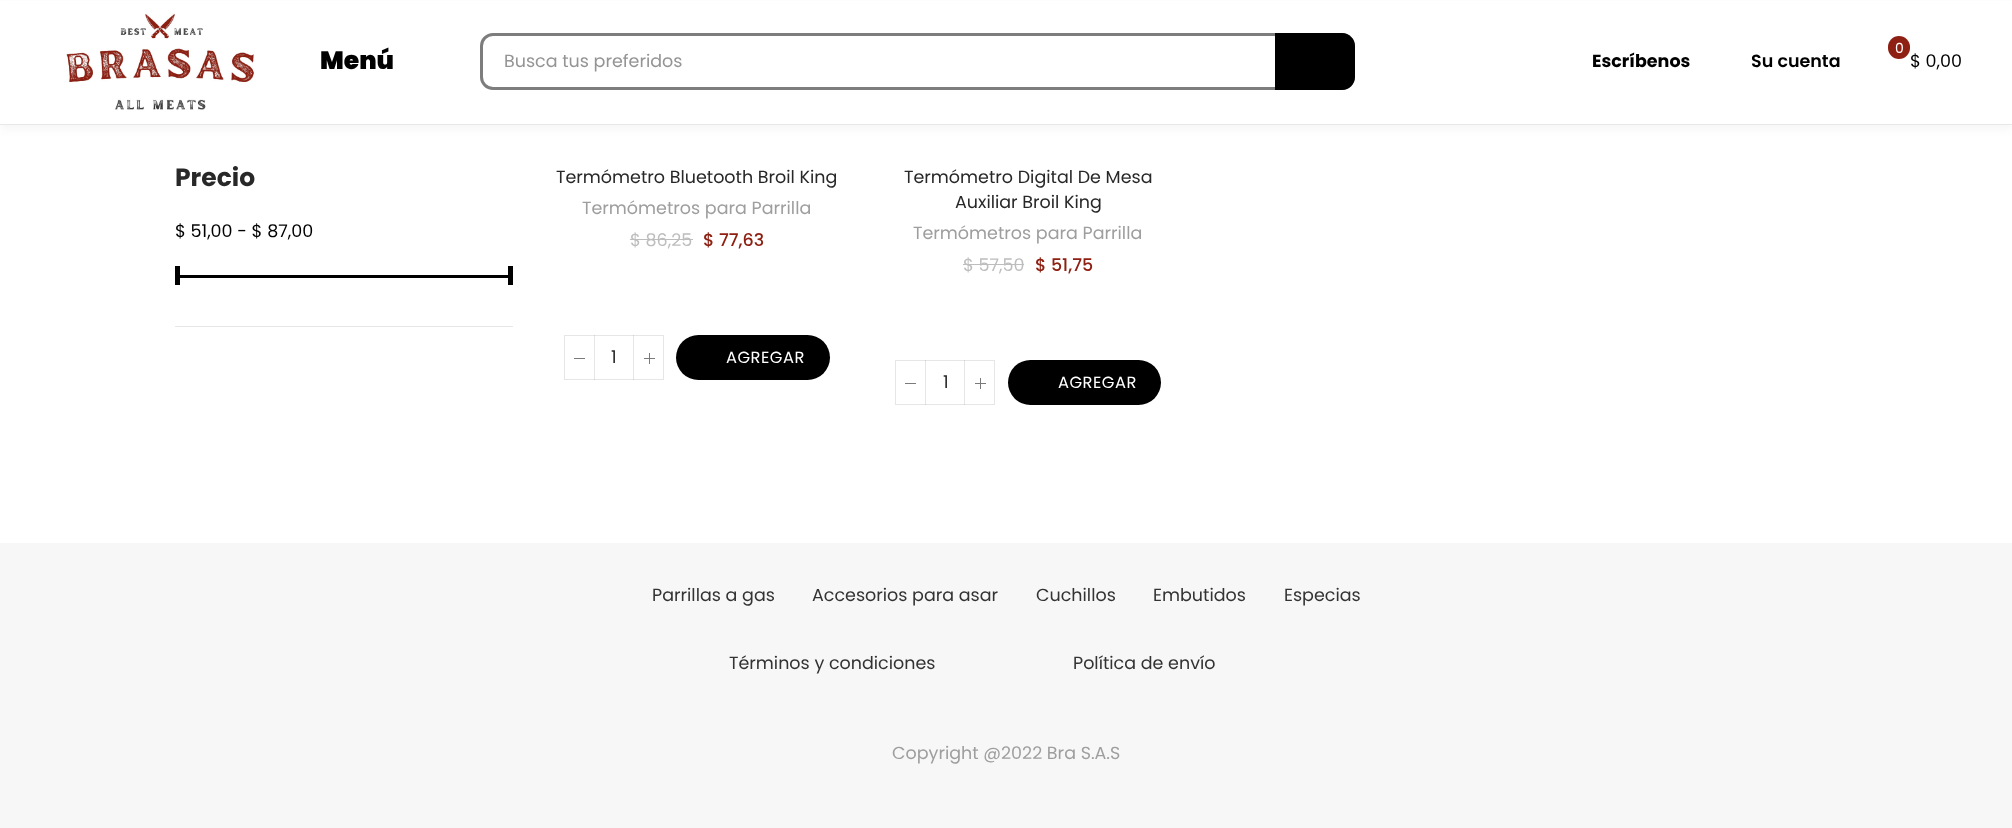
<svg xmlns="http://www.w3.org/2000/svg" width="2012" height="828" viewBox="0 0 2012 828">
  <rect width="100%" height="100%" fill="rgb(255,255,255)"/>
  <rect x="0" y="4" width="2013" height="125" fill="rgba(51,51,51,0.05)" filter="blur(4px)"/>
  <rect x="0" y="1" width="2012" height="123" fill="rgb(255,255,255)"/>
  <rect x="0" y="124" width="2012" height="1" fill="rgb(232,232,232)"/>
  <image x="66" y="13" width="188" height="97" href="pic1.png"/>
  <text x="320" y="69" font-family="Poppins" font-size="25" font-weight="900" fill="rgb(0,0,0)">Menú</text>
  <rect x="481.5" y="34.5" width="872" height="54" rx="11.5" fill="none" stroke="rgb(125,125,125)" stroke-width="3"/>
  <text x="504" y="67" font-family="Poppins" font-size="17.5" fill="rgb(148,148,148)">Busca tus preferidos</text>
  <path d="M1275 33H1342C1349 33 1355 39 1355 46V77C1355 84 1349 90 1342 90H1275Z" fill="rgb(0,0,0)"/>
  <text x="1592" y="67" font-family="Poppins" font-size="17.5" font-weight="bold" fill="rgb(0,0,0)">Escríbenos</text>
  <text x="1751" y="67" font-family="Poppins" font-size="17.5" font-weight="600" fill="rgb(0,0,0)">Su cuenta</text>
  <rect x="1888" y="36" width="22" height="23" rx="11" fill="rgb(141,32,18)"/>
  <text x="1895" y="53" font-family="Poppins" font-size="14" fill="rgb(255,255,255)">0</text>
  <text x="1910" y="67" font-family="Poppins" font-size="17.5" fill="rgb(0,0,0)">$ 0,00</text>
  <rect x="175" y="326" width="338" height="1" fill="rgb(230,230,230)"/>
  <text x="175" y="186" font-family="Poppins" font-size="25" font-weight="bold" fill="rgb(40,40,40)">Precio</text>
  <text x="175" y="237" font-family="Poppins" font-size="17.5" fill="rgb(0,0,0)">$ 51,00 - $ 87,00</text>
  <rect x="175" y="275" width="333" height="3" fill="rgb(0,0,0)"/>
  <rect x="175" y="266" width="5" height="19" fill="rgb(0,0,0)"/>
  <rect x="508" y="266" width="5" height="19" fill="rgb(0,0,0)"/>
  <text x="556" y="183" font-family="Poppins" font-size="17.5" fill="rgb(40,40,40)">Termómetro Bluetooth Broil King</text>
  <text x="582" y="214" font-family="Poppins" font-size="17.5" fill="rgb(158,158,158)">Termómetros para Parrilla</text>
  <text x="630" y="246" font-family="Poppins" font-size="17.5" fill="rgb(189,189,189)">$ 86,25</text>
  <rect x="630" y="239" width="63" height="1" fill="rgb(189,189,189)"/>
  <text x="703" y="246" font-family="Poppins" font-size="17.5" font-weight="500" fill="rgb(141,32,18)">$ 77,63</text>
  <rect x="564.5" y="335.5" width="99" height="44" fill="none" stroke="rgb(230,230,230)"/>
  <rect x="594" y="335" width="1" height="45" fill="rgba(129,129,129,0.2)"/>
  <rect x="574" y="358" width="11" height="1" fill="rgb(122,122,122)"/>
  <text x="611" y="363" font-family="Poppins" font-size="17.5" fill="rgb(40,40,40)">1</text>
  <rect x="633" y="335" width="1" height="45" fill="rgba(129,129,129,0.2)"/>
  <rect x="649" y="353" width="1" height="11" fill="rgb(122,122,122)"/>
  <rect x="644" y="358" width="11" height="1" fill="rgb(122,122,122)"/>
  <rect x="676" y="335" width="154" height="45" rx="22.5" fill="rgb(0,0,0)"/>
  <text x="726" y="363" font-family="Poppins" font-size="16.25" letter-spacing="0.5" fill="rgb(255,255,255)">AGREGAR</text>
  <g font-family="Poppins" font-size="17.5" fill="rgb(40,40,40)">
    <text x="904" y="183">Termómetro Digital De Mesa</text>
    <text x="955" y="208">Auxiliar Broil King</text>
  </g>
  <text x="913" y="239" font-family="Poppins" font-size="17.5" fill="rgb(158,158,158)">Termómetros para Parrilla</text>
  <text x="963" y="271" font-family="Poppins" font-size="17.5" fill="rgb(189,189,189)">$ 57,50</text>
  <rect x="963" y="264" width="61" height="1" fill="rgb(189,189,189)"/>
  <text x="1035" y="271" font-family="Poppins" font-size="17.5" font-weight="500" fill="rgb(141,32,18)">$ 51,75</text>
  <rect x="895.5" y="360.5" width="99" height="44" fill="none" stroke="rgb(230,230,230)"/>
  <rect x="925" y="360" width="1" height="45" fill="rgba(129,129,129,0.2)"/>
  <rect x="905" y="383" width="11" height="1" fill="rgb(122,122,122)"/>
  <text x="943" y="388" font-family="Poppins" font-size="17.5" fill="rgb(40,40,40)">1</text>
  <rect x="964" y="360" width="1" height="45" fill="rgba(129,129,129,0.2)"/>
  <rect x="980" y="378" width="1" height="11" fill="rgb(122,122,122)"/>
  <rect x="975" y="383" width="11" height="1" fill="rgb(122,122,122)"/>
  <rect x="1008" y="360" width="153" height="45" rx="22.5" fill="rgb(0,0,0)"/>
  <text x="1058" y="388" font-family="Poppins" font-size="16.25" letter-spacing="0.5" fill="rgb(255,255,255)">AGREGAR</text>
  <rect x="0" y="543" width="2012" height="285" fill="rgb(247,247,247)"/>
  <g font-family="Poppins" font-size="17.5" fill="rgb(51,51,51)">
    <text x="652" y="601">Parrillas a gas</text>
    <text x="812" y="601">Accesorios para asar</text>
    <text x="1036" y="601">Cuchillos</text>
    <text x="1153" y="601">Embutidos</text>
    <text x="1284" y="601">Especias</text>
    <text x="729" y="669">Términos y condiciones</text>
    <text x="1073" y="669">Política de envío</text>
  </g>
  <text x="892" y="759" font-family="Poppins" font-size="17.5" fill="rgb(158,158,158)">Copyright @2022 Bra S.A.S</text>
</svg>
